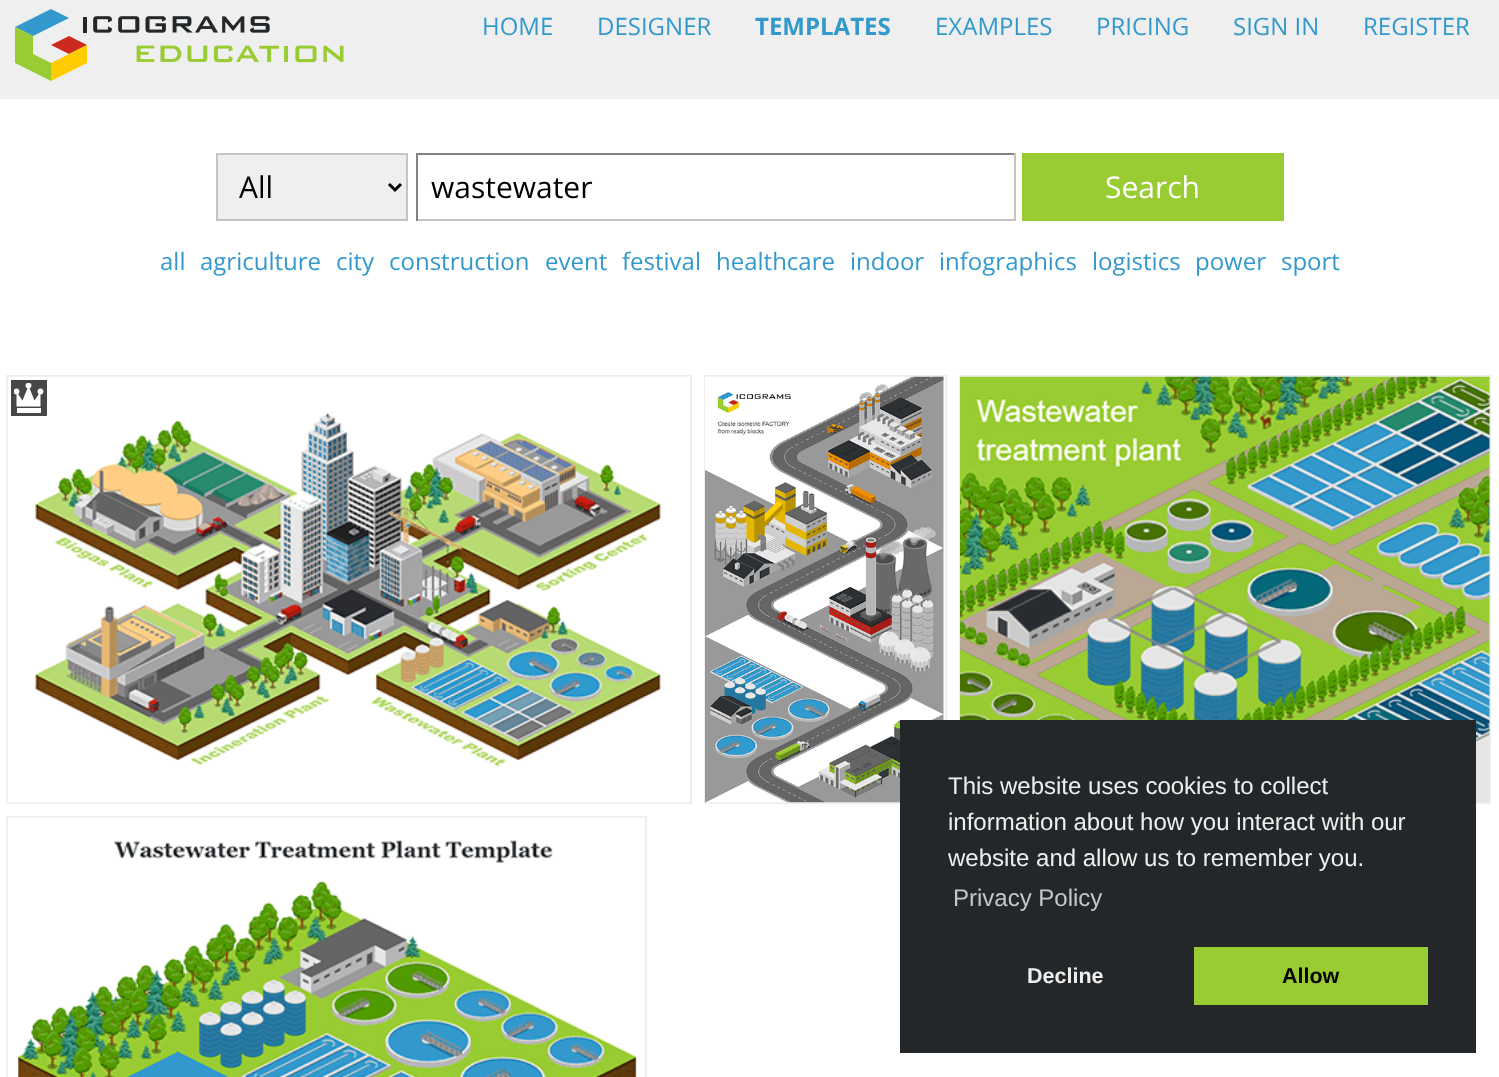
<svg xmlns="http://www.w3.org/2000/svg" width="1499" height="1077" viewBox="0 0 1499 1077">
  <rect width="100%" height="100%" fill="rgb(255,255,255)"/>
  <rect x="0" y="0" width="1499" height="99" fill="rgb(239,239,239)"/>
  <image x="15" y="9" width="329" height="72" href="pic1.png"/>
  <g font-family="Open Sans" font-size="24" fill="rgb(51,153,204)">
    <text x="482" y="35">HOME</text>
    <text x="597" y="35">DESIGNER</text>
  </g>
  <text x="755" y="35" font-family="Open Sans" font-size="24" font-weight="bold" fill="rgb(51,153,204)">TEMPLATES</text>
  <g font-family="Open Sans" font-size="24" fill="rgb(51,153,204)">
    <text x="935" y="35">EXAMPLES</text>
    <text x="1096" y="35">PRICING</text>
    <text x="1233" y="35">SIGN IN</text>
    <text x="1363" y="35">REGISTER</text>
  </g>
  <rect x="217" y="154" width="190" height="66" fill="rgb(239,239,239)" stroke="rgb(196,196,196)" stroke-width="2"/>
  <path d="M389 184L395 190L401 184" fill="none" stroke="rgb(0,0,0)" stroke-width="3"/>
  <text x="239" y="198" font-family="Open Sans" font-size="30" fill="rgb(0,0,0)">All</text>
  <rect x="416" y="153" width="600" height="2" fill="rgb(131,131,131)"/>
  <rect x="1014" y="153" width="2" height="68" fill="rgb(196,196,196)"/>
  <rect x="416" y="219" width="600" height="2" fill="rgb(196,196,196)"/>
  <rect x="416" y="153" width="2" height="68" fill="rgb(131,131,131)"/>
  <text x="431" y="198" font-family="Open Sans" font-size="30" fill="rgb(0,0,0)">wastewater</text>
  <rect x="1022" y="153" width="262" height="68" fill="rgb(153,204,51)"/>
  <text x="1105" y="198" font-family="Open Sans" font-size="30" fill="rgb(255,255,255)">Search</text>
  <g font-family="Open Sans" font-size="24" fill="rgb(51,153,204)">
    <text x="160" y="270">all</text>
    <text x="200" y="270">agriculture</text>
    <text x="336" y="270">city</text>
    <text x="389" y="270">construction</text>
    <text x="545" y="270">event</text>
    <text x="622" y="270">festival</text>
    <text x="716" y="270">healthcare</text>
    <text x="850" y="270">indoor</text>
    <text x="939" y="270">infographics</text>
    <text x="1092" y="270">logistics</text>
    <text x="1195" y="270">power</text>
    <text x="1281" y="270">sport</text>
  </g>
  <rect x="7" y="376" width="684" height="427" fill="none" stroke="rgb(238,238,238)" stroke-width="2"/>
  <image x="7" y="376" width="683" height="427" href="pic2.png"/>
  <rect x="11" y="380" width="36" height="36" fill="rgb(71,71,71)"/>
  <image x="14" y="383" width="30" height="30" href="pic3.png"/>
  <rect x="705" y="376" width="241" height="427" fill="none" stroke="rgb(238,238,238)" stroke-width="2"/>
  <image x="705" y="376" width="239" height="427" href="pic4.png"/>
  <rect x="960" y="376" width="530" height="427" fill="none" stroke="rgb(238,238,238)" stroke-width="2"/>
  <image x="960" y="376" width="530" height="427" href="pic5.png"/>
  <rect x="7" y="817" width="639" height="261" fill="none" stroke="rgb(238,238,238)" stroke-width="2"/>
  <image x="7" y="817" width="638" height="260" href="pic6.png"/>
  <rect x="900" y="720" width="576" height="333" fill="rgb(36,39,41)"/>
  <g font-family="Liberation Sans" font-size="24" fill="rgb(238,238,238)">
    <text>
      <tspan x="948" y="794">This website uses cookies to collect</tspan>
      <tspan x="948" y="830">information about how you interact with our</tspan>
      <tspan x="948" y="866">website and allow us to remember you.</tspan>
    </text>
  </g>
  <text x="953" y="906" font-family="Liberation Sans" font-size="24" fill="rgb(198,198,199)">Privacy Policy</text>
  <text x="1027" y="983" font-family="Liberation Sans" font-size="21.5" font-weight="bold" fill="rgb(238,238,238)">Decline</text>
  <rect x="1194" y="947" width="234" height="58" fill="rgb(153,204,51)"/>
  <text x="1282" y="983" font-family="Liberation Sans" font-size="21.5" font-weight="bold" fill="rgb(0,0,0)">Allow</text>
</svg>
